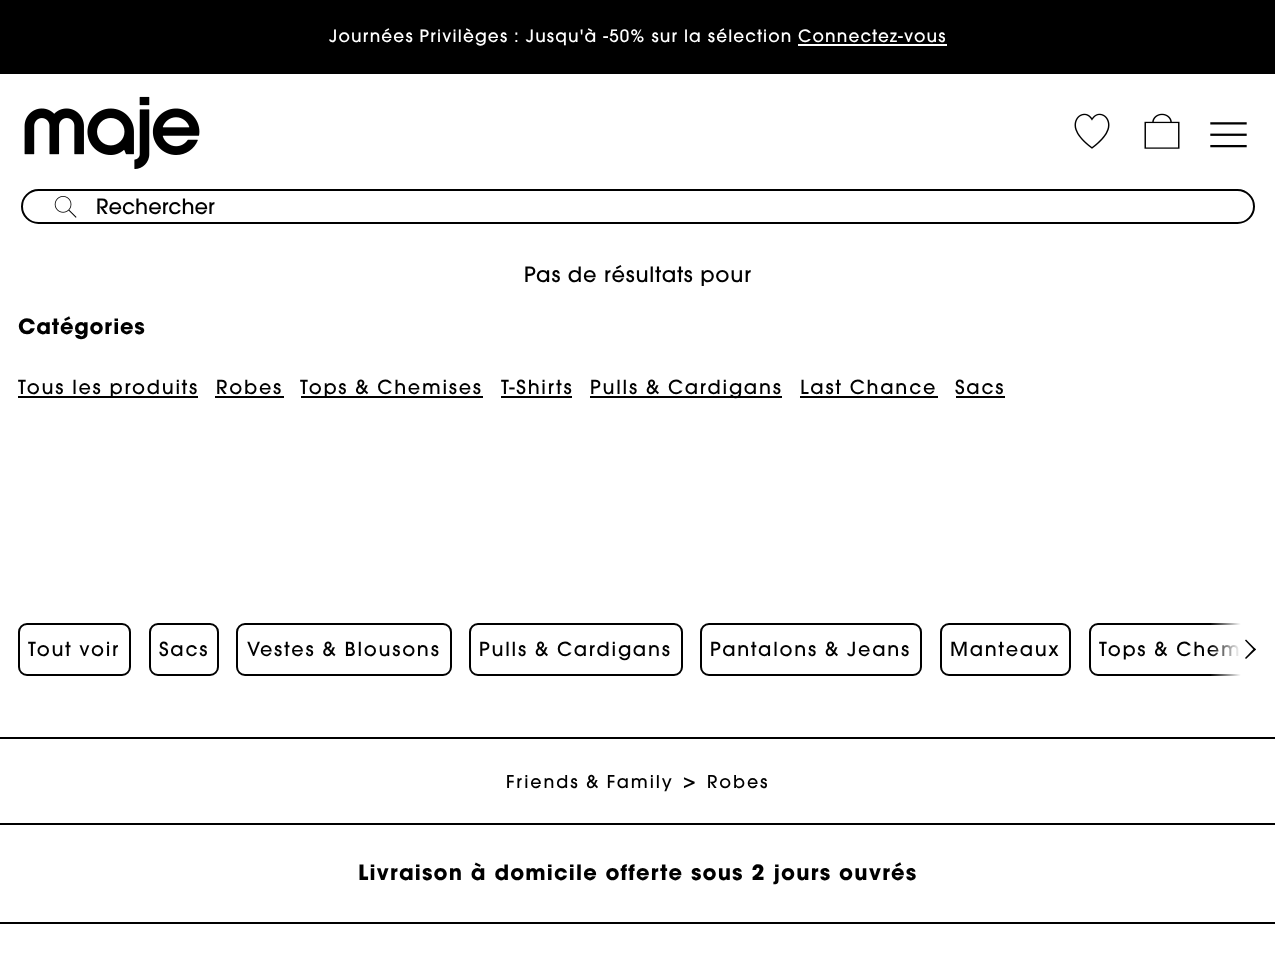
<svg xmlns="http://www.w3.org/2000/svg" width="1275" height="969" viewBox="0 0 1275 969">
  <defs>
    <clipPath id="clip1"><rect x="18" y="312" width="1240" height="91"/></clipPath>
    <linearGradient id="g1" gradientUnits="userSpaceOnUse" x1="1188" y1="649" x2="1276" y2="649"><stop offset="0.25" stop-color="rgb(255,255,255)" stop-opacity="0"/><stop offset="0.6" stop-color="rgb(255,255,255)"/></linearGradient>
  </defs>
  <rect width="100%" height="100%" fill="rgb(255,255,255)"/>
  <rect x="0" y="0" width="1275" height="74" fill="rgb(0,0,0)"/>
  <g font-family="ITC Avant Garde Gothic" font-size="16.95" font-weight="500" letter-spacing="1.15" fill="rgb(255,255,255)">
    <text x="329" y="42">Journées Privilèges : Jusqu'à -50% sur la sélection</text>
    <text x="798" y="42">Connectez-vous</text>
  </g>
  <rect x="798" y="44" width="149" height="2" fill="rgb(255,255,255)"/>
  <image x="24" y="96" width="176" height="73" href="pic1.png"/>
  <image x="1074" y="113" width="36" height="36" href="pic2.png"/>
  <image x="1144" y="113" width="36" height="36" href="pic3.png"/>
  <image x="1210" y="122" width="37" height="26" href="pic4.png"/>
  <rect x="22" y="190" width="1232" height="33" rx="16.5" fill="none" stroke="rgb(0,0,0)" stroke-width="2"/>
  <image x="54" y="196" width="23" height="22" href="pic5.png"/>
  <text x="96" y="214" font-family="ITC Avant Garde Gothic" font-size="21" font-weight="500" fill="rgb(0,0,0)">Rechercher</text>
  <text x="524" y="282" font-family="ITC Avant Garde Gothic" font-size="21" font-weight="500" letter-spacing="0.8" fill="rgb(0,0,0)">Pas de résultats pour</text>
  <text x="18" y="334" font-family="ITC Avant Garde Gothic" font-size="21" font-weight="bold" letter-spacing="0.75" fill="rgb(0,0,0)">Catégories</text>
  <rect x="18" y="396" width="180" height="2" fill="rgb(0,0,0)"/>
  <g clip-path="url(#clip1)">
    <text x="18" y="394" font-family="ITC Avant Garde Gothic" font-size="19.25" font-weight="500" letter-spacing="1.75" fill="rgb(0,0,0)">Tous les produits</text>
  </g>
  <text x="216" y="394" font-family="ITC Avant Garde Gothic" font-size="19.25" font-weight="500" letter-spacing="1.75" fill="rgb(0,0,0)">Robes</text>
  <rect x="215" y="396" width="69" height="2" fill="rgb(0,0,0)"/>
  <rect x="301" y="396" width="182" height="2" fill="rgb(0,0,0)"/>
  <g font-family="ITC Avant Garde Gothic" font-size="19.25" font-weight="500" letter-spacing="1.75" fill="rgb(0,0,0)">
    <text x="300" y="394">Tops &amp; Chemises</text>
    <text x="501" y="394">T-Shirts</text>
  </g>
  <rect x="501" y="396" width="71" height="2" fill="rgb(0,0,0)"/>
  <rect x="590" y="396" width="192" height="2" fill="rgb(0,0,0)"/>
  <g font-family="ITC Avant Garde Gothic" font-size="19.25" font-weight="500" letter-spacing="1.75" fill="rgb(0,0,0)">
    <text x="590" y="394">Pulls &amp; Cardigans</text>
    <text x="800" y="394">Last Chance</text>
  </g>
  <rect x="800" y="396" width="138" height="2" fill="rgb(0,0,0)"/>
  <text x="955" y="394" font-family="ITC Avant Garde Gothic" font-size="19.25" font-weight="500" letter-spacing="1.75" fill="rgb(0,0,0)">Sacs</text>
  <rect x="956" y="396" width="49" height="2" fill="rgb(0,0,0)"/>
  <rect x="19" y="624" width="111" height="51" rx="8" fill="none" stroke="rgb(0,0,0)" stroke-width="2"/>
  <text x="28" y="656" font-family="ITC Avant Garde Gothic" font-size="19.25" font-weight="500" letter-spacing="1.75" fill="rgb(0,0,0)">Tout voir</text>
  <rect x="150" y="624" width="68" height="51" rx="8" fill="none" stroke="rgb(0,0,0)" stroke-width="2"/>
  <text x="159" y="656" font-family="ITC Avant Garde Gothic" font-size="19.25" font-weight="500" letter-spacing="1.75" fill="rgb(0,0,0)">Sacs</text>
  <rect x="237" y="624" width="214" height="51" rx="8" fill="none" stroke="rgb(0,0,0)" stroke-width="2"/>
  <text x="247" y="656" font-family="ITC Avant Garde Gothic" font-size="19.25" font-weight="500" letter-spacing="1.75" fill="rgb(0,0,0)">Vestes &amp; Blousons</text>
  <rect x="470" y="624" width="212" height="51" rx="8" fill="none" stroke="rgb(0,0,0)" stroke-width="2"/>
  <text x="479" y="656" font-family="ITC Avant Garde Gothic" font-size="19.25" font-weight="500" letter-spacing="1.75" fill="rgb(0,0,0)">Pulls &amp; Cardigans</text>
  <rect x="701" y="624" width="220" height="51" rx="8" fill="none" stroke="rgb(0,0,0)" stroke-width="2"/>
  <text x="710" y="656" font-family="ITC Avant Garde Gothic" font-size="19.25" font-weight="500" letter-spacing="1.75" fill="rgb(0,0,0)">Pantalons &amp; Jeans</text>
  <rect x="941" y="624" width="129" height="51" rx="8" fill="none" stroke="rgb(0,0,0)" stroke-width="2"/>
  <text x="950" y="656" font-family="ITC Avant Garde Gothic" font-size="19.25" font-weight="500" letter-spacing="1.75" fill="rgb(0,0,0)">Manteaux</text>
  <rect x="1090" y="624" width="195" height="51" rx="8" fill="none" stroke="rgb(0,0,0)" stroke-width="2"/>
  <text x="1099" y="656" font-family="ITC Avant Garde Gothic" font-size="19.25" font-weight="500" letter-spacing="1.75" fill="rgb(0,0,0)">Tops &amp; Chem</text>
  <rect x="1211" y="623" width="64" height="53" fill="url(#g1)"/>
  <path d="M1246 639.5L1256 649.5L1254.5 650.5L1245 640.5Z" fill="rgb(0,0,0)"/>
  <path d="M1254.5 648L1256 649.5L1246 659L1245 658Z" fill="rgb(0,0,0)"/>
  <rect x="0" y="737" width="1275" height="2" fill="rgb(0,0,0)"/>
  <text x="506" y="788" font-family="ITC Avant Garde Gothic" font-size="17.5" font-weight="500" letter-spacing="1.9" fill="rgb(0,0,0)">Friends &amp; Family</text>
  <text x="683" y="788" font-family="ITC Avant Garde Gothic" font-size="21" font-weight="500" fill="rgb(0,0,0)">&gt;</text>
  <text x="707" y="788" font-family="ITC Avant Garde Gothic" font-size="17.5" font-weight="500" letter-spacing="1.9" fill="rgb(0,0,0)">Robes</text>
  <rect x="0" y="823" width="1275" height="2" fill="rgb(0,0,0)"/>
  <rect x="0" y="922" width="1275" height="2" fill="rgb(0,0,0)"/>
  <text x="358" y="880" font-family="ITC Avant Garde Gothic" font-size="21" font-weight="bold" letter-spacing="1.15" fill="rgb(0,0,0)">Livraison à domicile offerte sous 2 jours ouvrés</text>
</svg>
